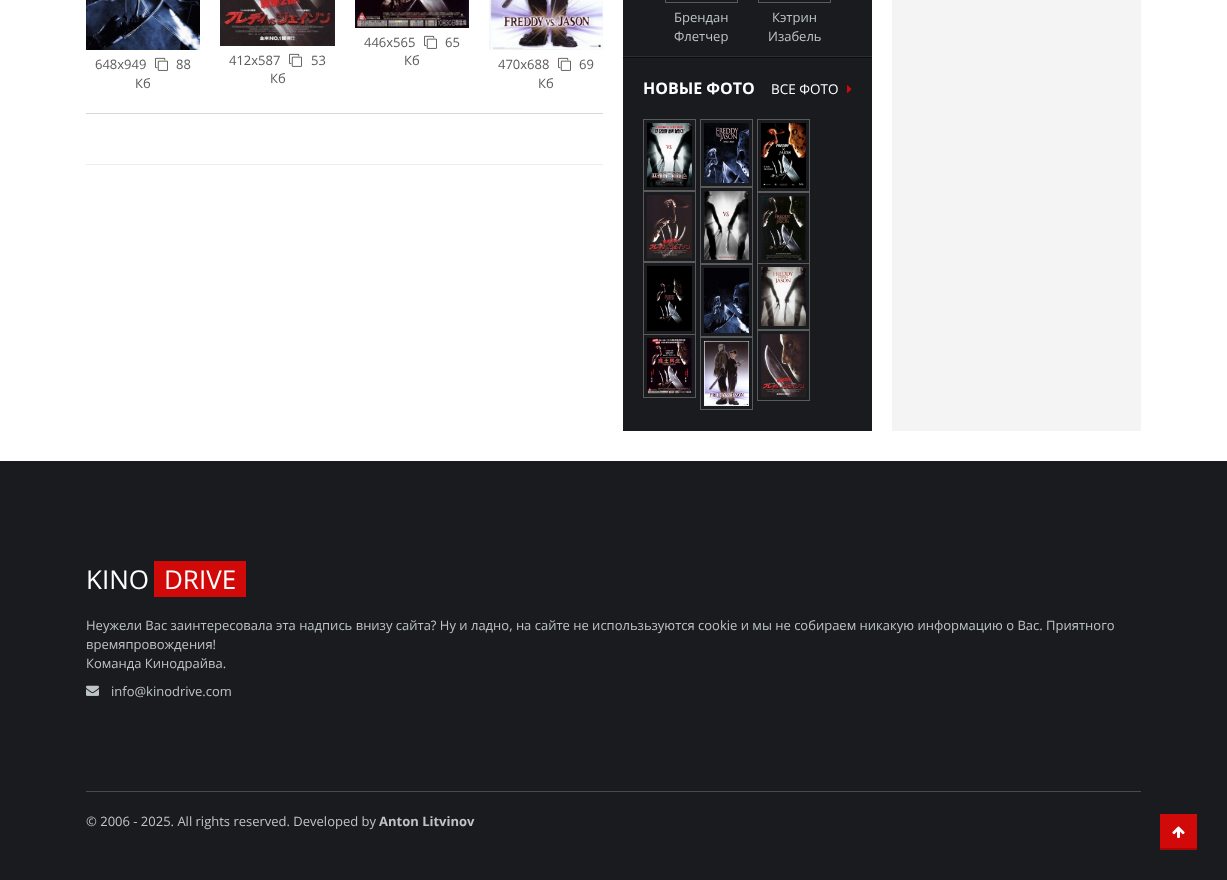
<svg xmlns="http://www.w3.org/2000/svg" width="1227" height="880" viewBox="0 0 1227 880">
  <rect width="100%" height="100%" fill="rgb(255,255,255)"/>
  <rect x="86" y="113" width="517" height="1" fill="rgb(216,216,216)"/>
  <image x="355" y="0" width="114" height="28" href="pic1.png"/>
  <text x="364" y="47" font-family="Open Sans" font-size="13" fill="rgb(91,90,90)">446x565</text>
  <image x="424" y="35" width="13" height="14" href="pic2.png"/>
  <g font-family="Open Sans" font-size="13" fill="rgb(91,90,90)">
    <text x="445" y="47">65</text>
    <text x="404" y="65">Кб</text>
  </g>
  <image x="86" y="0" width="114" height="50" href="pic3.png"/>
  <text x="95" y="69" font-family="Open Sans" font-size="13" fill="rgb(91,90,90)">648x949</text>
  <image x="155" y="57" width="13" height="14" href="pic2.png"/>
  <g font-family="Open Sans" font-size="13" fill="rgb(91,90,90)">
    <text x="176" y="69">88</text>
    <text x="135" y="88">Кб</text>
  </g>
  <image x="220" y="0" width="115" height="46" href="pic4.png"/>
  <text x="229" y="65" font-family="Open Sans" font-size="13" fill="rgb(91,90,90)">412x587</text>
  <image x="289" y="53" width="13" height="14" href="pic2.png"/>
  <g font-family="Open Sans" font-size="13" fill="rgb(91,90,90)">
    <text x="311" y="65">53</text>
    <text x="270" y="83">Кб</text>
  </g>
  <image x="489" y="0" width="114" height="50" href="pic5.png"/>
  <text x="498" y="69" font-family="Open Sans" font-size="13" fill="rgb(91,90,90)">470x688</text>
  <image x="558" y="57" width="13" height="14" href="pic2.png"/>
  <g font-family="Open Sans" font-size="13" fill="rgb(91,90,90)">
    <text x="579" y="69">69</text>
    <text x="538" y="88">Кб</text>
  </g>
  <rect x="86" y="164" width="517" height="1" fill="rgb(238,238,238)"/>
  <rect x="623" y="0" width="249" height="431" fill="rgb(25,27,31)"/>
  <rect x="665.5" y="-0.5" width="72" height="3" fill="none" stroke="rgb(90,90,90)"/>
  <g font-family="Open Sans" font-size="13" fill="rgb(189,195,199)">
    <text>
      <tspan x="674" y="22">Брендан</tspan>
      <tspan x="674" y="41">Флетчер</tspan>
    </text>
  </g>
  <rect x="758.5" y="-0.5" width="72" height="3" fill="none" stroke="rgb(90,90,90)"/>
  <g font-family="Open Sans" font-size="13" fill="rgb(189,195,199)">
    <text x="772" y="22">Кэтрин</text>
    <text x="768" y="41">Изабель</text>
  </g>
  <rect x="623" y="56" width="249" height="1" fill="rgb(43,46,54)"/>
  <rect x="623" y="57" width="249" height="1" fill="rgb(11,12,16)"/>
  <text x="643" y="94" font-family="Open Sans" font-size="16" font-weight="bold" fill="rgb(255,255,255)">НОВЫЕ ФОТО</text>
  <text x="771" y="94" font-family="Open Sans" font-size="13.5" fill="rgb(255,255,255)">ВСЕ ФОТО</text>
  <image x="847" y="85" width="5" height="8" href="pic6.png"/>
  <rect x="643.5" y="119.5" width="52" height="71" fill="none" stroke="rgb(90,90,90)"/>
  <image x="647" y="123" width="45" height="64" href="pic7.png"/>
  <rect x="700.5" y="119.5" width="52" height="67" fill="none" stroke="rgb(90,90,90)"/>
  <image x="704" y="123" width="45" height="60" href="pic8.png"/>
  <rect x="757.5" y="119.5" width="52" height="72" fill="none" stroke="rgb(90,90,90)"/>
  <image x="761" y="123" width="45" height="65" href="pic9.png"/>
  <rect x="643.5" y="191.5" width="52" height="70" fill="none" stroke="rgb(90,90,90)"/>
  <image x="647" y="195" width="45" height="63" href="pic10.png"/>
  <rect x="700.5" y="187.5" width="52" height="76" fill="none" stroke="rgb(90,90,90)"/>
  <image x="704" y="191" width="45" height="69" href="pic11.png"/>
  <rect x="757.5" y="192.5" width="52" height="71" fill="none" stroke="rgb(90,90,90)"/>
  <image x="761" y="196" width="45" height="64" href="pic12.png"/>
  <rect x="643.5" y="262.5" width="52" height="72" fill="none" stroke="rgb(90,90,90)"/>
  <image x="647" y="266" width="45" height="65" href="pic13.png"/>
  <rect x="700.5" y="264.5" width="52" height="72" fill="none" stroke="rgb(90,90,90)"/>
  <image x="704" y="268" width="45" height="65" href="pic14.png"/>
  <rect x="757.5" y="263.5" width="52" height="66" fill="none" stroke="rgb(90,90,90)"/>
  <image x="761" y="267" width="45" height="59" href="pic15.png"/>
  <rect x="643.5" y="334.5" width="52" height="63" fill="none" stroke="rgb(90,90,90)"/>
  <image x="647" y="338" width="45" height="56" href="pic16.png"/>
  <rect x="700.5" y="337.5" width="52" height="72" fill="none" stroke="rgb(90,90,90)"/>
  <image x="704" y="341" width="45" height="65" href="pic17.png"/>
  <rect x="757.5" y="330.5" width="52" height="70" fill="none" stroke="rgb(90,90,90)"/>
  <image x="761" y="334" width="45" height="63" href="pic18.png"/>
  <rect x="892" y="0" width="249" height="431" fill="rgb(244,244,244)"/>
  <rect x="0" y="461" width="1227" height="419" fill="rgb(25,27,31)"/>
  <text x="86" y="589" font-family="Open Sans" font-size="26" fill="rgb(255,255,255)">KINO</text>
  <rect x="154" y="561" width="92" height="36" fill="rgb(209,9,9)"/>
  <text x="164" y="589" font-family="Open Sans" font-size="26" fill="rgb(255,255,255)">DRIVE</text>
  <g font-family="Open Sans" font-size="13" fill="rgb(189,195,199)">
    <text>
      <tspan x="86" y="630">Неужели Вас заинтересовала эта надпись внизу сайта? Ну и ладно, на сайте не использьзуются cookie и мы не собираем никакую информацию о Вас. Приятного</tspan>
      <tspan x="86" y="649">времяпровождения!</tspan>
      <tspan x="86" y="668">Команда Кинодрайва.</tspan>
    </text>
  </g>
  <image x="86" y="685" width="13" height="11" href="pic19.png"/>
  <text x="111" y="696" font-family="Open Sans" font-size="13" fill="rgb(189,195,199)">info@kinodrive.com</text>
  <rect x="86" y="791" width="1055" height="1" fill="rgb(71,73,76)"/>
  <text x="86" y="826" font-family="Open Sans" font-size="13" fill="rgb(189,195,199)">© 2006 - 2025. All rights reserved. Developed by</text>
  <text x="379" y="826" font-family="Open Sans" font-size="13" font-weight="bold" fill="rgb(189,195,199)">Anton Litvinov</text>
  <rect x="1160" y="814" width="37" height="34" fill="rgb(209,9,9)"/>
  <rect x="1160" y="848" width="37" height="2" fill="rgb(167,7,7)"/>
  <image x="1172" y="826" width="13" height="12" href="pic20.png"/>
</svg>
